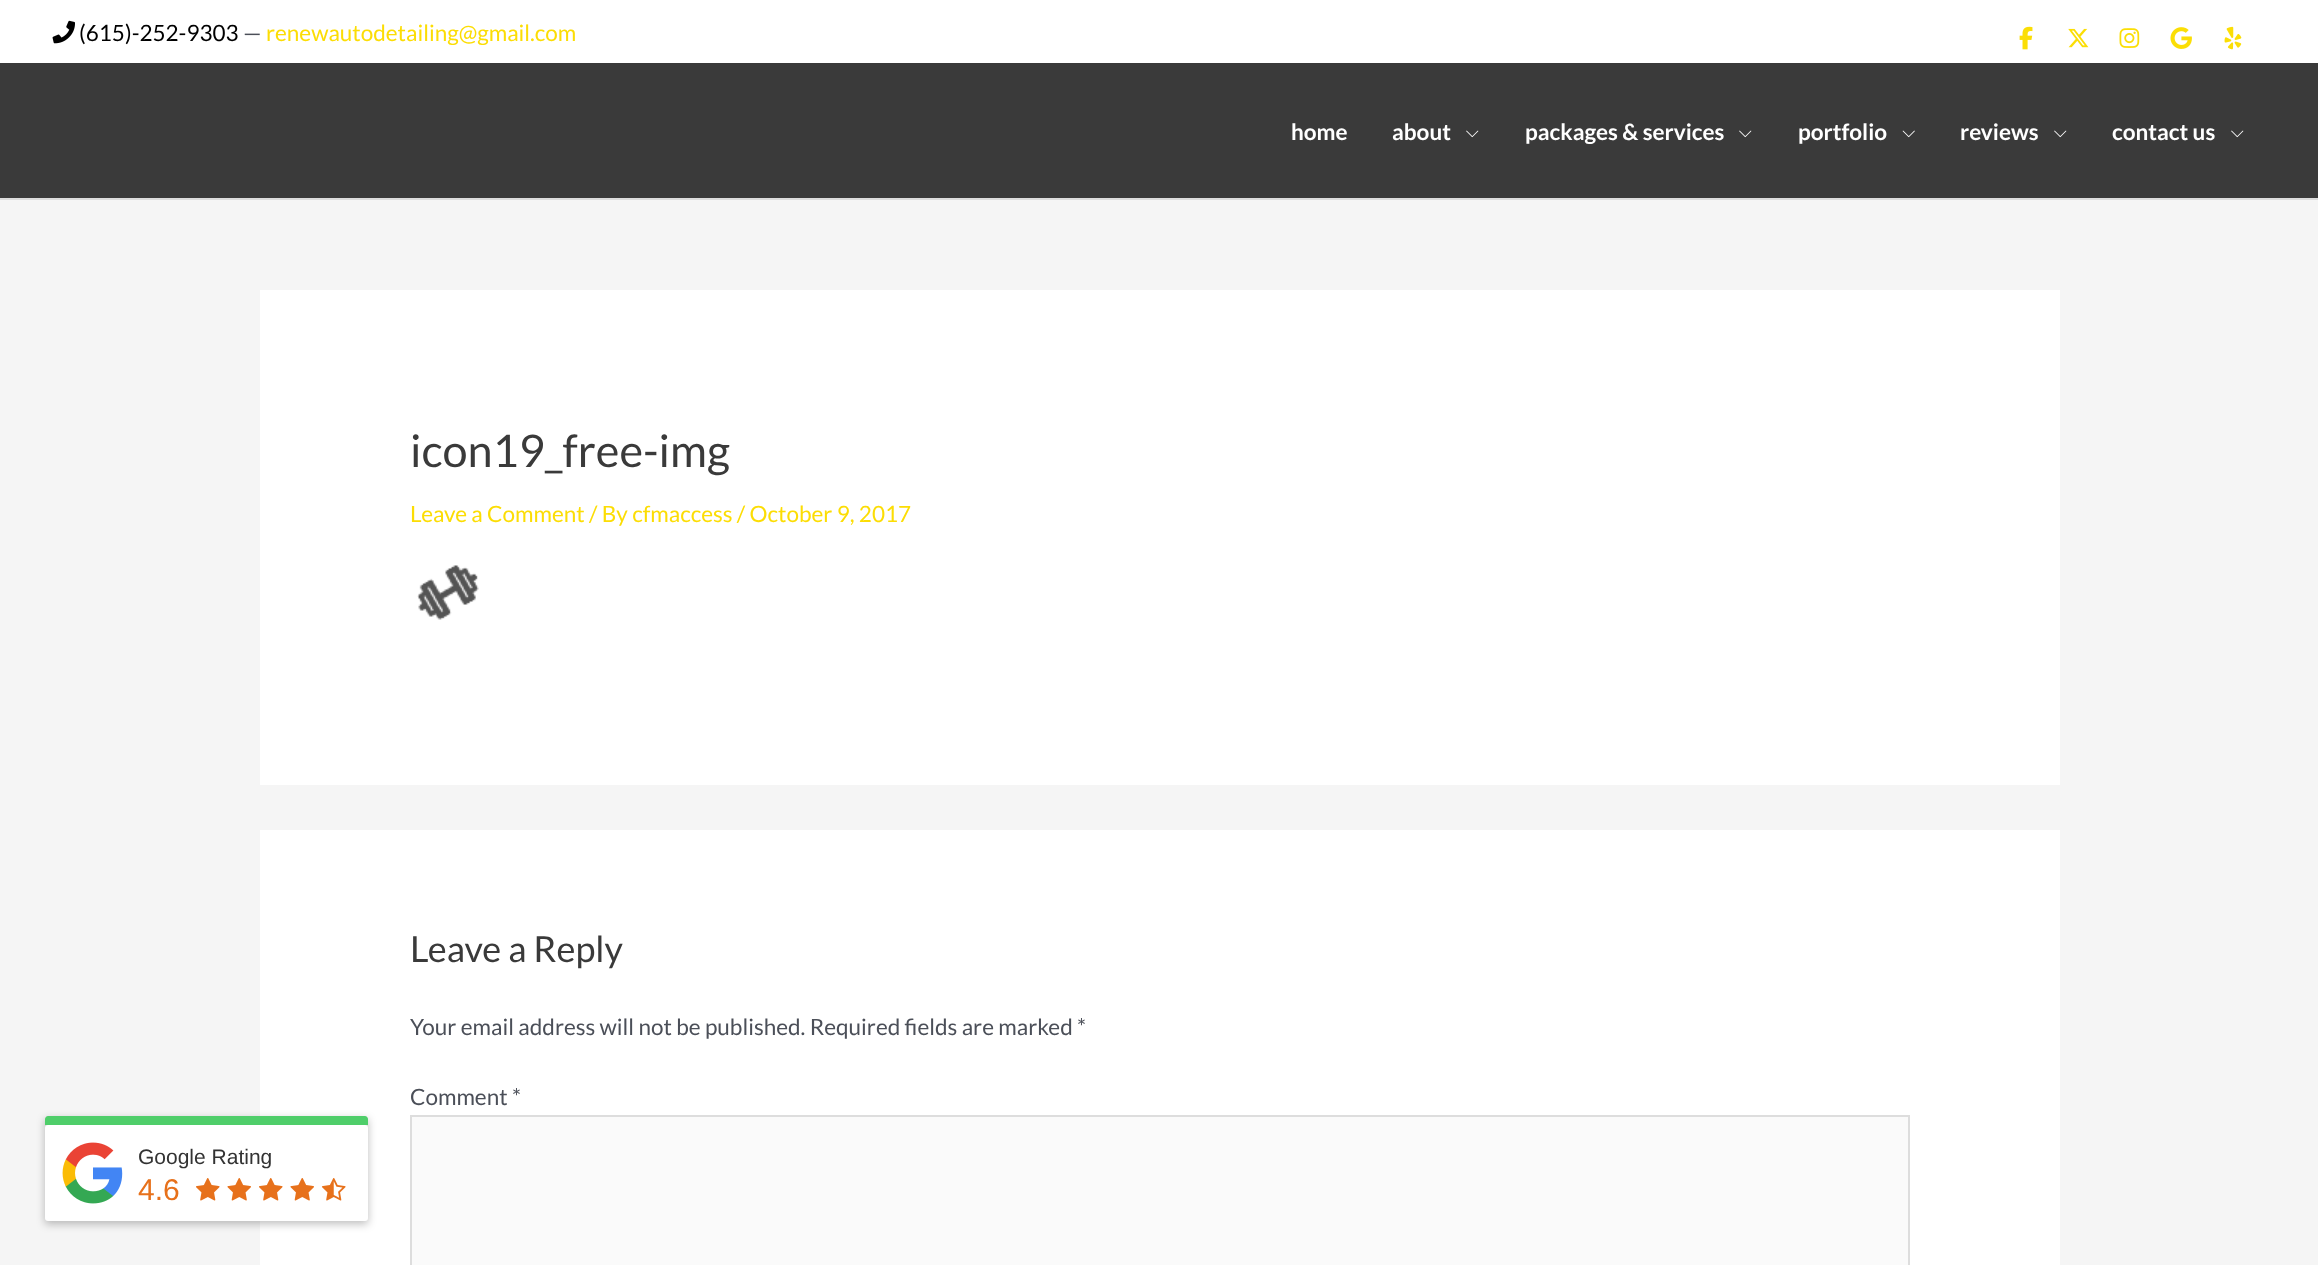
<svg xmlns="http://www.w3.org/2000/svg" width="2318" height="1265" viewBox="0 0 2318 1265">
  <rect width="100%" height="100%" fill="rgb(245,245,245)"/>
  <rect x="0" y="0" width="2318" height="63" fill="rgb(255,255,255)"/>
  <image x="52" y="20" width="23" height="24" href="pic1.png"/>
  <text x="79" y="41" font-family="Lato" font-size="22.5" fill="rgb(0,0,0)">(615)-252-9303</text>
  <text x="243" y="41" font-family="Lato" font-size="22.5" fill="rgb(75,79,88)">—</text>
  <text x="266" y="41" font-family="Lato" font-size="22.5" fill="rgb(252,221,4)">renewautodetailing@gmail.com</text>
  <image x="2019" y="26" width="14" height="24" href="pic2.png"/>
  <image x="2068" y="28" width="21" height="20" href="pic3.png"/>
  <image x="2119" y="28" width="21" height="20" href="pic4.png"/>
  <image x="2170" y="27" width="22" height="22" href="pic5.png"/>
  <image x="2224" y="26" width="18" height="24" href="pic6.png"/>
  <rect x="0" y="63" width="2318" height="135" fill="rgb(58,58,58)"/>
  <rect x="0" y="198" width="2318" height="2" fill="rgb(221,221,221)"/>
  <g font-family="Lato" font-size="22.5" font-weight="bold" fill="rgb(255,255,255)">
    <text x="1291" y="140">home</text>
    <text x="1392" y="140">about</text>
  </g>
  <image x="1466" y="130" width="13" height="8" href="pic7.png"/>
  <text x="1525" y="140" font-family="Lato" font-size="22.5" font-weight="bold" fill="rgb(255,255,255)">packages &amp; services</text>
  <image x="1739" y="130" width="13" height="8" href="pic7.png"/>
  <text x="1798" y="140" font-family="Lato" font-size="22.5" font-weight="bold" fill="rgb(255,255,255)">portfolio</text>
  <image x="1902" y="130" width="13" height="8" href="pic8.png"/>
  <text x="1960" y="140" font-family="Lato" font-size="22.5" font-weight="bold" fill="rgb(255,255,255)">reviews</text>
  <image x="2054" y="130" width="13" height="8" href="pic7.png"/>
  <text x="2112" y="140" font-family="Lato" font-size="22.5" font-weight="bold" fill="rgb(255,255,255)">contact us</text>
  <image x="2231" y="130" width="13" height="8" href="pic7.png"/>
  <rect x="260" y="290" width="1800" height="495" fill="rgb(255,255,255)"/>
  <text x="410" y="467" font-family="Lato" font-size="45" fill="rgb(58,58,58)">icon19_free-img</text>
  <text x="410" y="522" font-family="Lato" font-size="22.5" fill="rgb(252,221,4)">Leave a Comment / By cfmaccess / October 9, 2017</text>
  <image x="417" y="565" width="62" height="55" href="pic9.png"/>
  <rect x="260" y="830" width="1800" height="435" fill="rgb(255,255,255)"/>
  <text x="410" y="962" font-family="Lato" font-size="36" fill="rgb(58,58,58)">Leave a Reply</text>
  <g font-family="Lato" font-size="22.5" fill="rgb(75,79,88)">
    <text x="410" y="1035">Your email address will not be published. Required fields are marked *</text>
    <text x="410" y="1105">Comment *</text>
  </g>
  <rect x="411" y="1116" width="1498" height="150" fill="rgb(250,250,250)" stroke="rgb(221,221,221)" stroke-width="2"/>
  <rect x="45" y="1119" width="323" height="105" fill="rgba(0,0,0,0.26)" filter="blur(4px)"/>
  <path d="M48 1116H365C366.5 1116 368 1117.5 368 1119V1125H45V1119C45 1117.5 46.5 1116 48 1116Z" fill="rgb(79,206,106)"/>
  <rect x="45" y="1125" width="323" height="96" rx="3" fill="rgb(255,255,255)"/>
  <image x="62" y="1142" width="61" height="62" href="pic10.png"/>
  <text x="138" y="1164" font-family="Liberation Sans" font-size="21" fill="rgb(51,51,51)">Google Rating</text>
  <text x="138" y="1200" font-family="Liberation Sans" font-size="30" fill="rgb(231,113,27)">4.6</text>
  <image x="196" y="1178" width="24" height="23" href="pic11.png"/>
  <image x="227" y="1178" width="24" height="23" href="pic12.png"/>
  <image x="259" y="1178" width="24" height="23" href="pic11.png"/>
  <image x="290" y="1178" width="24" height="23" href="pic12.png"/>
  <image x="321" y="1178" width="25" height="23" href="pic13.png"/>
</svg>
